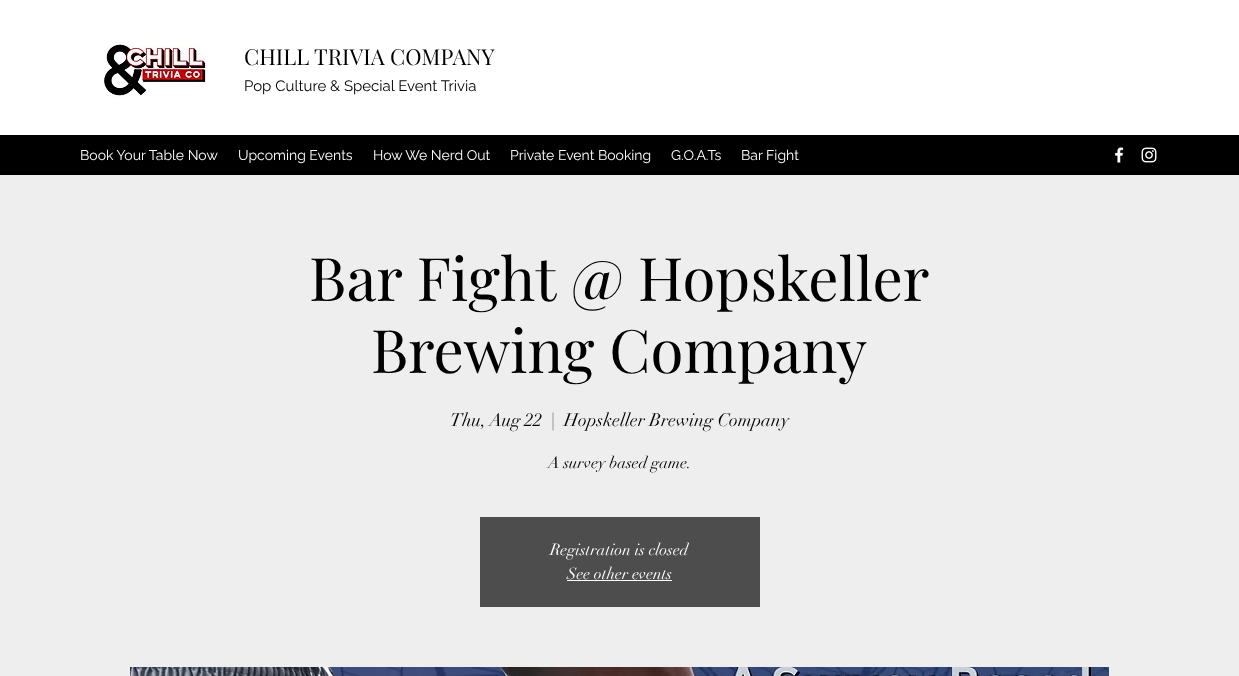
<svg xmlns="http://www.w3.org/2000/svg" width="1239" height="676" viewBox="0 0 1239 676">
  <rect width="100%" height="100%" fill="rgb(255,255,255)"/>
  <image x="104" y="42" width="104" height="56" href="pic1.png"/>
  <text x="244" y="65" font-family="Playfair Display" font-size="22" fill="rgb(0,0,0)">CHILL TRIVIA COMPANY</text>
  <text x="244" y="91" font-family="Raleway" font-size="15" fill="rgb(0,0,0)">Pop Culture &amp; Special Event Trivia</text>
  <rect x="0" y="135" width="1239" height="40" fill="rgb(0,0,0)"/>
  <g font-family="Raleway" font-size="14" fill="rgb(255,255,255)">
    <text x="80" y="160">Book Your Table Now</text>
    <text x="238" y="160">Upcoming Events</text>
    <text x="373" y="160">How We Nerd Out</text>
    <text x="510" y="160">Private Event Booking</text>
    <text x="671" y="160">G.O.A.Ts</text>
    <text x="741" y="160">Bar Fight</text>
  </g>
  <image x="1115" y="147" width="9" height="16" href="pic2.png"/>
  <image x="1141" y="147" width="16" height="16" href="pic3.png"/>
  <rect x="0" y="175" width="1239" height="501" fill="rgb(238,238,238)"/>
  <g font-family="Playfair Display" font-size="60" fill="rgb(0,0,0)">
    <text x="309" y="301">Bar Fight @ Hopskeller</text>
    <text x="371" y="373">Brewing Company</text>
  </g>
  <g font-family="didot" font-size="18" fill="rgb(0,0,0)">
    <text x="450" y="426">Thu, Aug 22</text>
    <text x="551" y="426">|</text>
    <text x="564" y="426">Hopskeller Brewing Company</text>
  </g>
  <text x="548" y="468" font-family="didot" font-size="16" fill="rgb(0,0,0)">A survey based game.</text>
  <rect x="480" y="517" width="280" height="90" fill="rgb(77,77,77)"/>
  <g font-family="didot" font-size="16" fill="rgb(255,255,255)">
    <text x="550" y="555">Registration is closed</text>
    <text x="567" y="579">See other events</text>
  </g>
  <rect x="567" y="580" width="105" height="1" fill="rgb(255,255,255)"/>
  <image x="130" y="667" width="979" height="9" href="pic4.png"/>
</svg>
